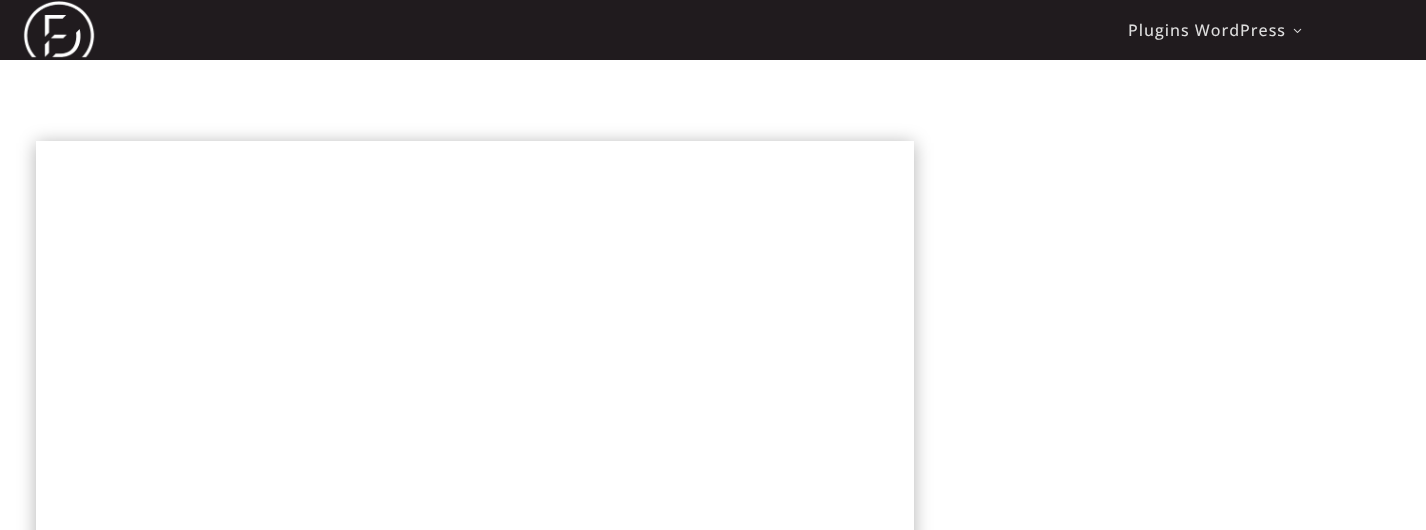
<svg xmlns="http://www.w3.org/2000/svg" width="1426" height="530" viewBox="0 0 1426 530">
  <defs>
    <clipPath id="clip1"><path d="M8 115H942V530H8ZM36 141H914V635H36Z" clip-rule="evenodd"/></clipPath>
  </defs>
  <rect width="100%" height="100%" fill="rgb(255,255,255)"/>
  <rect x="0" y="0" width="1426" height="60" fill="rgb(32,27,30)"/>
  <image x="23" y="1" width="72" height="57" href="pic1.png"/>
  <text x="1128" y="36" font-family="Open Sans" font-size="16" font-weight="500" letter-spacing="1" fill="rgb(221,221,221)">Plugins WordPress</text>
  <image x="1293" y="28" width="9" height="5" href="pic2.png"/>
  <g clip-path="url(#clip1)">
    <rect x="36" y="143" width="878" height="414" fill="rgba(0,0,0,0.3)" filter="blur(9px)"/>
  </g>
</svg>
